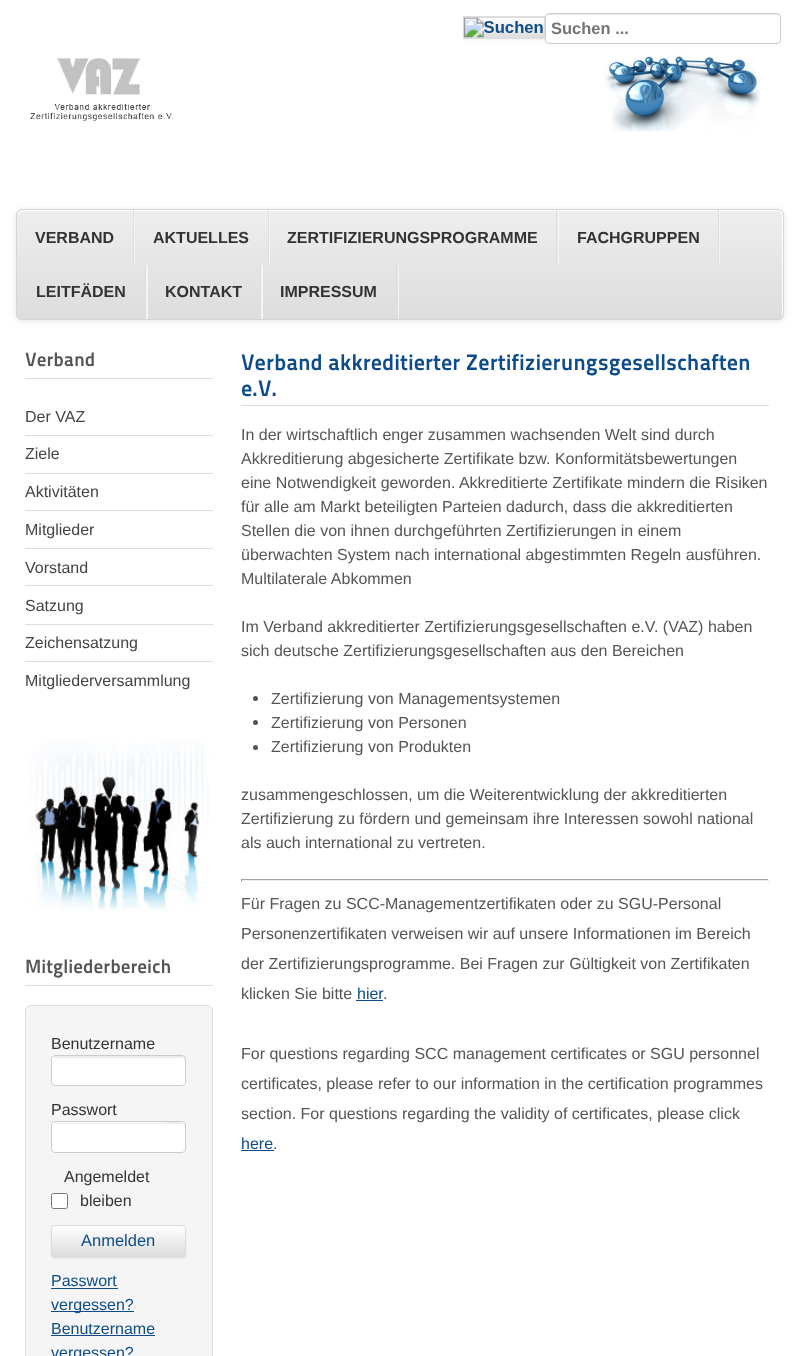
<svg xmlns="http://www.w3.org/2000/svg" width="800" height="1356" viewBox="0 0 800 1356">
  <defs>
    <linearGradient id="g1" gradientUnits="userSpaceOnUse" x1="504" y1="17" x2="504" y2="38"><stop offset="0" stop-color="rgb(255,255,255)"/><stop offset="1" stop-color="rgb(221,221,221)"/></linearGradient>
    <clipPath id="clip1"><rect x="16" y="209" width="768" height="111" rx="6"/></clipPath>
    <linearGradient id="g2" gradientUnits="userSpaceOnUse" x1="400" y1="210" x2="400" y2="319"><stop offset="0" stop-color="rgb(238,238,238)"/><stop offset="1" stop-color="rgb(221,221,221)"/></linearGradient>
    <clipPath id="clip2"><rect x="51" y="1225" width="135" height="33" rx="4"/></clipPath>
    <linearGradient id="g3" gradientUnits="userSpaceOnUse" x1="119" y1="1226" x2="119" y2="1256"><stop offset="0" stop-color="rgb(255,255,255)"/><stop offset="1" stop-color="rgb(221,221,221)"/></linearGradient>
  </defs>
  <rect width="100%" height="100%" fill="rgb(255,255,255)"/>
  <rect x="463" y="18" width="82" height="22" fill="rgba(0,0,0,0.05)" filter="blur(1px)"/>
  <rect x="464" y="17" width="80" height="1" fill="rgb(221,221,221)"/>
  <rect x="464" y="18" width="80" height="20" fill="url(#g1)"/>
  <rect x="463.5" y="16.5" width="81" height="22" fill="none" stroke="rgb(221,221,221)"/>
  <image x="463" y="17" width="80" height="21" href="pic1.png"/>
  <rect x="545" y="13" width="236" height="31" rx="4" fill="rgb(255,255,255)"/>
  <path d="M549 15H778C779 15 780 16 780 18C780 16 780 14 778 14H548C546 14 546 16 546 18C546 16 547 15 549 15Z" fill="rgb(236,236,236)"/>
  <rect x="545.5" y="13.5" width="235" height="30" rx="3.5" fill="none" stroke="rgb(204,204,204)"/>
  <text x="551" y="34" font-family="Liberation Sans" font-size="16.5" font-weight="bold" fill="rgb(117,117,117)">Suchen ...</text>
  <image x="30" y="58" width="144" height="63" href="pic2.png"/>
  <image x="604" y="52" width="156" height="80" href="pic3.png"/>
  <rect x="16" y="210" width="768" height="111" rx="6" fill="rgba(0,0,0,0.1)" filter="blur(3px)"/>
  <g clip-path="url(#clip1)">
    <rect x="16" y="210" width="768" height="109" fill="url(#g2)"/>
  </g>
  <path d="M22 211H778C780 211 782 213 782 216V315L781 318C782 317 783 315 783 314V215C783 212 781 210 778 210H23C20 210 18 212 18 215V216C18 213 20 211 22 211Z" fill="rgb(255,255,255)"/>
  <rect x="16.5" y="209.5" width="767" height="110" rx="5.5" fill="none" stroke="rgb(213,213,213)"/>
  <rect x="134" y="210" width="1" height="55" fill="rgb(245,245,245)"/>
  <rect x="133" y="210" width="1" height="55" fill="rgb(221,221,221)"/>
  <text x="35" y="243" font-family="Liberation Sans" font-size="16" font-weight="bold" fill="rgb(51,51,51)">VERBAND</text>
  <rect x="269" y="210" width="1" height="55" fill="rgb(245,245,245)"/>
  <rect x="268" y="210" width="1" height="55" fill="rgb(221,221,221)"/>
  <text x="153" y="243" font-family="Liberation Sans" font-size="16" font-weight="bold" fill="rgb(51,51,51)">AKTUELLES</text>
  <rect x="558" y="210" width="1" height="55" fill="rgb(245,245,245)"/>
  <rect x="556" y="210" width="1" height="55" fill="rgb(221,221,221)"/>
  <text x="287" y="243" font-family="Liberation Sans" font-size="16" font-weight="bold" fill="rgb(51,51,51)">ZERTIFIZIERUNGSPROGRAMME</text>
  <rect x="719" y="210" width="1" height="55" fill="rgb(245,245,245)"/>
  <rect x="718" y="210" width="1" height="55" fill="rgb(221,221,221)"/>
  <text x="577" y="243" font-family="Liberation Sans" font-size="16" font-weight="bold" fill="rgb(51,51,51)">FACHGRUPPEN</text>
  <path d="M19 319H148V265H146V319Z" fill="rgb(245,245,245)"/>
  <rect x="145" y="265" width="1" height="38" fill="rgb(221,221,221)"/>
  <text x="36" y="297" font-family="Liberation Sans" font-size="16" font-weight="bold" fill="rgb(51,51,51)">LEITFÄDEN</text>
  <path d="M148 319H263V265H261V319Z" fill="rgb(245,245,245)"/>
  <rect x="260" y="265" width="1" height="38" fill="rgb(221,221,221)"/>
  <text x="165" y="297" font-family="Liberation Sans" font-size="16" font-weight="bold" fill="rgb(51,51,51)">KONTAKT</text>
  <path d="M263 319H399V265H398V319Z" fill="rgb(245,245,245)"/>
  <rect x="396" y="265" width="1" height="38" fill="rgb(221,221,221)"/>
  <text x="280" y="297" font-family="Liberation Sans" font-size="16" font-weight="bold" fill="rgb(51,51,51)">IMPRESSUM</text>
  <rect x="25" y="378" width="188" height="1" fill="rgb(221,221,221)"/>
  <text x="25" y="366" font-family="'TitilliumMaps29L'" font-size="19.25" font-weight="800" fill="rgb(85,85,85)">Verband</text>
  <rect x="25" y="435" width="188" height="1" fill="rgb(221,221,221)"/>
  <text x="25" y="422" font-family="Liberation Sans" font-size="16" fill="rgb(68,68,68)">Der VAZ</text>
  <rect x="25" y="473" width="188" height="1" fill="rgb(221,221,221)"/>
  <text x="25" y="459" font-family="Liberation Sans" font-size="16" fill="rgb(68,68,68)">Ziele</text>
  <rect x="25" y="510" width="188" height="1" fill="rgb(221,221,221)"/>
  <text x="25" y="497" font-family="Liberation Sans" font-size="16" fill="rgb(68,68,68)">Aktivitäten</text>
  <rect x="25" y="548" width="188" height="1" fill="rgb(221,221,221)"/>
  <text x="25" y="535" font-family="Liberation Sans" font-size="16" fill="rgb(68,68,68)">Mitglieder</text>
  <rect x="25" y="585" width="188" height="1" fill="rgb(221,221,221)"/>
  <text x="25" y="573" font-family="Liberation Sans" font-size="16" fill="rgb(68,68,68)">Vorstand</text>
  <rect x="25" y="624" width="188" height="1" fill="rgb(221,221,221)"/>
  <text x="25" y="611" font-family="Liberation Sans" font-size="16" fill="rgb(68,68,68)">Satzung</text>
  <rect x="25" y="661" width="188" height="1" fill="rgb(221,221,221)"/>
  <g font-family="Liberation Sans" font-size="16" fill="rgb(68,68,68)">
    <text x="25" y="648">Zeichensatzung</text>
    <text x="25" y="686">Mitgliederversammlung</text>
  </g>
  <image x="29" y="742" width="180" height="171" href="pic4.png"/>
  <rect x="25" y="985" width="188" height="1" fill="rgb(221,221,221)"/>
  <text x="25" y="973" font-family="'TitilliumMaps29L'" font-size="19.25" font-weight="800" fill="rgb(85,85,85)">Mitgliederbereich</text>
  <rect x="25.5" y="1005.5" width="187" height="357" rx="5.5" fill="rgb(245,245,245)" stroke="rgb(221,221,221)"/>
  <text x="51" y="1049" font-family="Liberation Sans" font-size="16" fill="rgb(51,51,51)">Benutzername</text>
  <rect x="51" y="1055" width="135" height="31" rx="4" fill="rgb(255,255,255)"/>
  <path d="M55 1058H182C184 1058 185 1059 185 1060V1058C185 1057 184 1056 182 1056H56C54 1056 53 1057 53 1058Z" fill="rgb(236,236,236)"/>
  <rect x="51.5" y="1055.5" width="134" height="30" rx="3.5" fill="none" stroke="rgb(204,204,204)"/>
  <text x="51" y="1115" font-family="Liberation Sans" font-size="16" fill="rgb(51,51,51)">Passwort</text>
  <rect x="51" y="1121" width="135" height="32" rx="4" fill="rgb(255,255,255)"/>
  <path d="M55 1124H182C184 1124 185 1125 185 1126C185 1119 165 1123 161 1123H55L53 1125Z" fill="rgb(236,236,236)"/>
  <rect x="51.5" y="1121.5" width="134" height="31" rx="3.5" fill="none" stroke="rgb(204,204,204)"/>
  <text x="64" y="1182" font-family="Liberation Sans" font-size="16" fill="rgb(51,51,51)">Angemeldet</text>
  <rect x="51.5" y="1193.5" width="16" height="15" rx="2" fill="rgb(255,255,255)" stroke="rgb(118,118,118)"/>
  <text x="80" y="1206" font-family="Liberation Sans" font-size="16" fill="rgb(51,51,51)">bleiben</text>
  <rect x="51" y="1226" width="135" height="33" rx="4" fill="rgba(0,0,0,0.05)" filter="blur(1px)"/>
  <rect x="51" y="1225" width="135" height="33" rx="4" fill="rgb(221,221,221)"/>
  <g clip-path="url(#clip2)">
    <rect x="51" y="1226" width="135" height="30" fill="url(#g3)"/>
  </g>
  <rect x="51.5" y="1225.5" width="134" height="32" rx="3.5" fill="none" stroke="rgb(221,221,221)"/>
  <text x="81" y="1246" font-family="Liberation Sans" font-size="16.5" fill="rgb(13,76,137)">Anmelden</text>
  <text x="51" y="1286" font-family="Liberation Sans" font-size="16" fill="rgb(13,76,137)">Passwort</text>
  <rect x="51" y="1288" width="67" height="1" fill="rgb(13,76,137)"/>
  <rect x="51" y="1311" width="83" height="1" fill="rgb(13,76,137)"/>
  <g font-family="Liberation Sans" font-size="16" fill="rgb(13,76,137)">
    <text>
      <tspan x="51" y="1310">vergessen?</tspan>
      <tspan x="51" y="1334">Benutzername</tspan>
    </text>
  </g>
  <rect x="51" y="1335" width="104" height="1" fill="rgb(13,76,137)"/>
  <text x="51" y="1358" font-family="Liberation Sans" font-size="16" fill="rgb(13,76,137)">vergessen?</text>
  <rect x="241" y="405" width="528" height="1" fill="rgb(221,221,221)"/>
  <g font-family="'TitilliumMaps29L'" font-size="22.4" font-weight="800" fill="rgb(13,76,137)">
    <text>
      <tspan x="241" y="370">Verband akkreditierter Zertifizierungsgesellschaften</tspan>
      <tspan x="241" y="396">e.V.</tspan>
    </text>
  </g>
  <g font-family="Liberation Sans" font-size="16" fill="rgb(85,85,85)">
    <text>
      <tspan x="241" y="440">In der wirtschaftlich enger zusammen wachsenden Welt sind durch</tspan>
      <tspan x="241" y="464">Akkreditierung abgesicherte Zertifikate bzw. Konformitätsbewertungen</tspan>
      <tspan x="241" y="488">eine Notwendigkeit geworden. Akkreditierte Zertifikate mindern die Risiken</tspan>
      <tspan x="241" y="512">für alle am Markt beteiligten Parteien dadurch, dass die akkreditierten</tspan>
      <tspan x="241" y="536">Stellen die von ihnen durchgeführten Zertifizierungen in einem</tspan>
      <tspan x="241" y="560">überwachten System nach international abgestimmten Regeln ausführen.</tspan>
      <tspan x="241" y="584">Multilaterale Abkommen</tspan>
    </text>
    <text>
      <tspan x="241" y="632">Im Verband akkreditierter Zertifizierungsgesellschaften e.V. (VAZ) haben</tspan>
      <tspan x="241" y="656">sich deutsche Zertifizierungsgesellschaften aus den Bereichen</tspan>
    </text>
  </g>
  <circle cx="255.5" cy="698.5" r="2.5" fill="rgb(85,85,85)"/>
  <text x="271" y="704" font-family="Liberation Sans" font-size="16" fill="rgb(85,85,85)">Zertifizierung von Managementsystemen</text>
  <circle cx="255.5" cy="722.5" r="2.5" fill="rgb(85,85,85)"/>
  <text x="271" y="728" font-family="Liberation Sans" font-size="16" fill="rgb(85,85,85)">Zertifizierung von Personen</text>
  <circle cx="255.5" cy="747.5" r="2.5" fill="rgb(85,85,85)"/>
  <g font-family="Liberation Sans" font-size="16" fill="rgb(85,85,85)">
    <text x="271" y="752">Zertifizierung von Produkten</text>
    <text>
      <tspan x="241" y="800">zusammengeschlossen, um die Weiterentwicklung der akkreditierten</tspan>
      <tspan x="241" y="824">Zertifizierung zu fördern und gemeinsam ihre Interessen sowohl national</tspan>
      <tspan x="241" y="848">als auch international zu vertreten.</tspan>
    </text>
  </g>
  <rect x="241" y="879" width="528" height="1" fill="rgb(159,159,159)"/>
  <rect x="768" y="879" width="1" height="3" fill="rgb(238,238,238)"/>
  <rect x="241" y="880" width="528" height="1" fill="rgb(238,238,238)"/>
  <rect x="241" y="879" width="1" height="3" fill="rgb(159,159,159)"/>
  <g font-family="Liberation Sans" font-size="16" fill="rgb(85,85,85)">
    <text>
      <tspan x="241" y="909">Für Fragen zu SCC-Managementzertifikaten oder zu SGU-Personal</tspan>
      <tspan x="241" y="939">Personenzertifikaten verweisen wir auf unsere Informationen im Bereich</tspan>
      <tspan x="241" y="969">der Zertifizierungsprogramme. Bei Fragen zur Gültigkeit von Zertifikaten</tspan>
      <tspan x="241" y="999">klicken Sie bitte</tspan>
    </text>
  </g>
  <text x="357" y="999" font-family="Liberation Sans" font-size="16" fill="rgb(13,76,137)">hier</text>
  <rect x="356" y="1000" width="27" height="1" fill="rgb(13,76,137)"/>
  <g font-family="Liberation Sans" font-size="16" fill="rgb(85,85,85)">
    <text x="383" y="999">.</text>
    <text>
      <tspan x="241" y="1059">For questions regarding SCC management certificates or SGU personnel</tspan>
      <tspan x="241" y="1089">certificates, please refer to our information in the certification programmes</tspan>
      <tspan x="241" y="1119">section. For questions regarding the validity of certificates, please click</tspan>
    </text>
  </g>
  <text x="241" y="1149" font-family="Liberation Sans" font-size="16" fill="rgb(13,76,137)">here</text>
  <rect x="241" y="1150" width="33" height="1" fill="rgb(13,76,137)"/>
  <text x="273" y="1149" font-family="Liberation Sans" font-size="16" fill="rgb(85,85,85)">.</text>
</svg>
